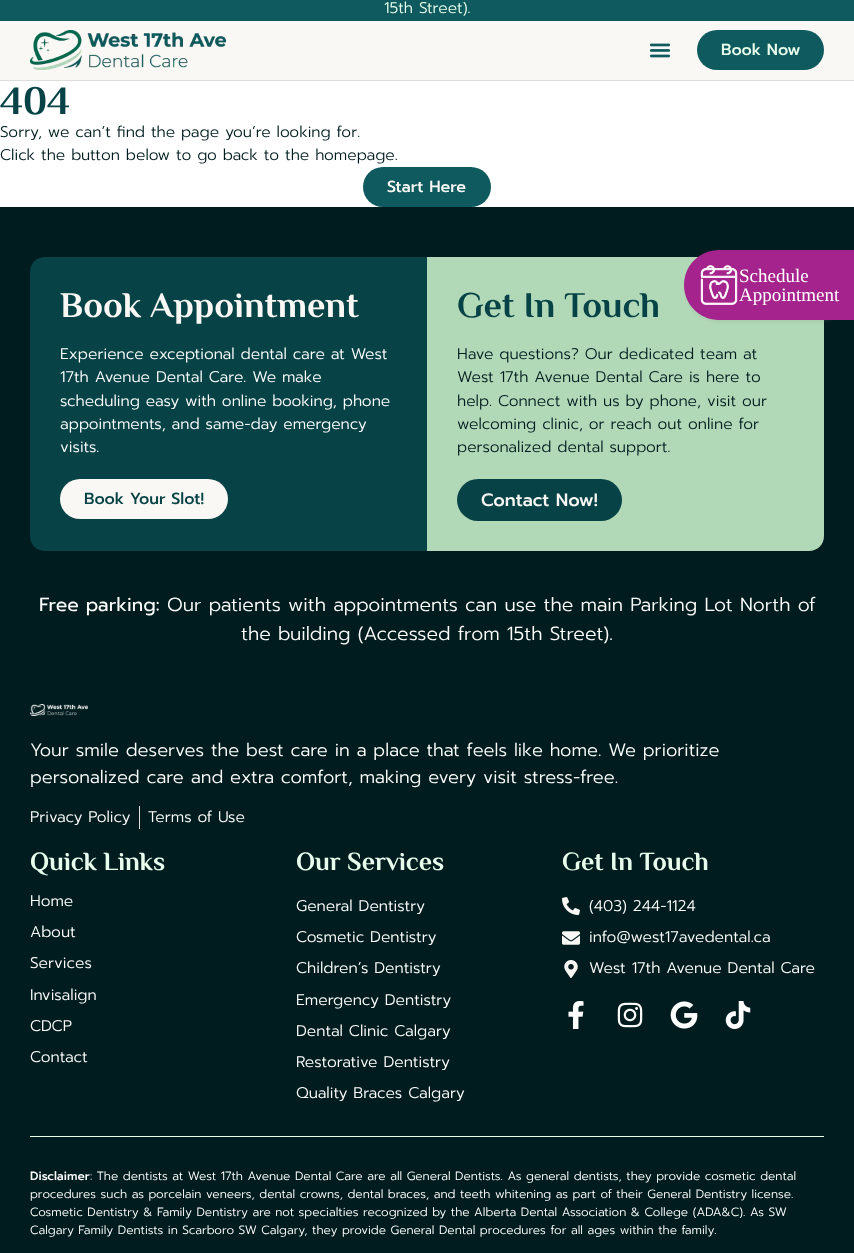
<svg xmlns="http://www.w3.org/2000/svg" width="854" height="1253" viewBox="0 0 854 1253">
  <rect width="100%" height="100%" fill="rgb(255,255,255)"/>
  <rect x="0" y="0" width="854" height="21" fill="rgb(15,90,94)"/>
  <text x="384" y="13" font-family="Prompt" font-size="15.5" font-weight="300" fill="rgb(233,255,237)">15th Street).</text>
  <rect x="0" y="21" width="854" height="59" fill="rgb(249,248,244)"/>
  <rect x="0" y="80" width="854" height="1" fill="rgb(221,221,221)"/>
  <image x="30" y="30" width="196" height="40" href="pic1.png"/>
  <image x="649" y="43" width="22" height="15" href="pic2.png"/>
  <rect x="697" y="30" width="127" height="40" rx="20" fill="rgb(15,90,94)"/>
  <text x="721" y="55" font-family="Prompt" font-size="16" font-weight="500" fill="rgb(233,255,237)">Book Now</text>
  <text x="0" y="114" font-family="Philosopher" font-size="40" font-weight="bold" fill="rgb(7,67,70)">404</text>
  <g font-family="Prompt" font-size="15.5" font-weight="300" fill="rgb(1,28,31)">
    <text>
      <tspan x="0" y="137">Sorry, we can’t find the page you’re looking for.</tspan>
      <tspan x="0" y="160">Click the button below to go back to the homepage.</tspan>
    </text>
  </g>
  <rect x="363" y="167" width="128" height="40" rx="20" fill="rgb(15,90,94)"/>
  <text x="387" y="192" font-family="Prompt" font-size="16" font-weight="500" fill="rgb(249,248,244)">Start Here</text>
  <rect x="0" y="207" width="854" height="1046" fill="rgb(1,28,31)"/>
  <path d="M427 257H809C817.5 257 824 263.5 824 272V536C824 544.5 817.5 551 809 551H427Z" fill="rgb(177,216,183)"/>
  <rect x="685" y="252" width="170" height="70" rx="35" fill="rgba(128,128,128,0.15)" filter="blur(1.5px)"/>
  <path d="M719 250H854V320H719C699.5 320 684 304.5 684 285C684 265.5 699.5 250 719 250Z" fill="rgb(165,35,140)"/>
  <image x="700" y="265" width="38" height="40" href="pic3.png"/>
  <g font-family="Liberation Serif" font-size="19" fill="rgb(255,255,255)">
    <text>
      <tspan x="739" y="282">Schedule</tspan>
      <tspan x="739" y="301">Appointment</tspan>
    </text>
  </g>
  <path d="M45 257H427V551H45C36.5 551 30 544.5 30 536V272C30 263.5 36.5 257 45 257Z" fill="rgb(7,67,70)"/>
  <text x="60" y="317" font-family="Philosopher" font-size="36" font-weight="bold" fill="rgb(249,248,244)">Book Appointment</text>
  <g font-family="Prompt" font-size="15.5" font-weight="300" fill="rgb(255,255,255)">
    <text>
      <tspan x="60" y="359">Experience exceptional dental care at West</tspan>
      <tspan x="60" y="382">17th Avenue Dental Care. We make</tspan>
      <tspan x="60" y="406">scheduling easy with online booking, phone</tspan>
      <tspan x="60" y="429">appointments, and same-day emergency</tspan>
      <tspan x="60" y="452">visits.</tspan>
    </text>
  </g>
  <rect x="60" y="479" width="168" height="40" rx="20" fill="rgb(249,248,244)"/>
  <text x="84" y="504" font-family="Prompt" font-size="16" font-weight="500" fill="rgb(7,67,70)">Book Your Slot!</text>
  <text x="457" y="317" font-family="Philosopher" font-size="36" font-weight="bold" fill="rgb(7,67,70)">Get In Touch</text>
  <g font-family="Prompt" font-size="15.5" font-weight="300" fill="rgb(1,28,31)">
    <text>
      <tspan x="457" y="359">Have questions? Our dedicated team at</tspan>
      <tspan x="457" y="382">West 17th Avenue Dental Care is here to</tspan>
      <tspan x="457" y="406">help. Connect with us by phone, visit our</tspan>
      <tspan x="457" y="429">welcoming clinic, or reach out online for</tspan>
      <tspan x="457" y="452">personalized dental support.</tspan>
    </text>
  </g>
  <rect x="457" y="479" width="165" height="42" rx="21" fill="rgb(7,67,70)"/>
  <text x="481" y="506" font-family="Prompt" font-size="18" font-weight="500" fill="rgb(249,248,244)">Contact Now!</text>
  <text x="39" y="611" font-family="Prompt" font-size="19" fill="rgb(255,255,255)">Free parking:</text>
  <g font-family="Prompt" font-size="19" font-weight="300" fill="rgb(255,255,255)">
    <text x="167" y="611">Our patients with appointments can use the main Parking Lot North of</text>
    <text x="241" y="640">the building (Accessed from 15th Street).</text>
  </g>
  <image x="30" y="704" width="58" height="12" href="pic4.png"/>
  <g font-family="Prompt" font-size="18" font-weight="300" fill="rgb(255,255,255)">
    <text>
      <tspan x="30" y="756">Your smile deserves the best care in a place that feels like home. We prioritize</tspan>
      <tspan x="30" y="783">personalized care and extra comfort, making every visit stress-free.</tspan>
    </text>
  </g>
  <text x="30" y="822" font-family="Prompt" font-size="15.5" font-weight="300" fill="rgb(255,255,255)">Privacy Policy</text>
  <rect x="139" y="806" width="1" height="23" fill="rgb(221,221,221)"/>
  <text x="148" y="822" font-family="Prompt" font-size="15.5" font-weight="300" fill="rgb(255,255,255)">Terms of Use</text>
  <text x="30" y="870" font-family="Philosopher" font-size="26" font-weight="bold" fill="rgb(233,255,237)">Quick Links</text>
  <g font-family="Prompt" font-size="15.5" font-weight="300" fill="rgb(255,255,255)">
    <text x="30" y="906">Home</text>
    <text x="30" y="937">About</text>
    <text x="30" y="968">Services</text>
    <text x="30" y="1000">Invisalign</text>
    <text x="30" y="1031">CDCP</text>
    <text x="30" y="1062">Contact</text>
  </g>
  <text x="296" y="870" font-family="Philosopher" font-size="26" font-weight="bold" fill="rgb(233,255,237)">Our Services</text>
  <g font-family="Prompt" font-size="15.5" font-weight="300" fill="rgb(255,255,255)">
    <text x="296" y="911">General Dentistry</text>
    <text x="296" y="942">Cosmetic Dentistry</text>
    <text x="296" y="973">Children’s Dentistry</text>
    <text x="296" y="1005">Emergency Dentistry</text>
    <text x="296" y="1036">Dental Clinic Calgary</text>
    <text x="296" y="1067">Restorative Dentistry</text>
    <text x="296" y="1098">Quality Braces Calgary</text>
  </g>
  <text x="562" y="870" font-family="Philosopher" font-size="26" font-weight="bold" fill="rgb(233,255,237)">Get In Touch</text>
  <image x="562" y="897" width="18" height="18" href="pic5.png"/>
  <text x="589" y="911" font-family="Prompt" font-size="15.5" font-weight="300" fill="rgb(255,255,255)">(403) 244-1124</text>
  <image x="562" y="931" width="18" height="14" href="pic6.png"/>
  <text x="589" y="942" font-family="Prompt" font-size="15.5" font-weight="300" fill="rgb(255,255,255)">info@west17avedental.ca</text>
  <image x="564" y="960" width="14" height="18" href="pic7.png"/>
  <text x="589" y="973" font-family="Prompt" font-size="15.5" font-weight="300" fill="rgb(255,255,255)">West 17th Avenue Dental Care</text>
  <image x="568" y="1001" width="16" height="28" href="pic8.png"/>
  <image x="617" y="1002" width="26" height="26" href="pic9.png"/>
  <image x="670" y="1001" width="28" height="28" href="pic10.png"/>
  <image x="725" y="1001" width="26" height="28" href="pic11.png"/>
  <rect x="30" y="1136" width="794" height="1" fill="rgb(233,255,237)"/>
  <text x="30" y="1180" font-family="Prompt" font-size="12" font-weight="500" fill="rgb(255,255,255)">Disclaimer</text>
  <g font-family="Prompt" font-size="12" font-weight="300" fill="rgb(255,255,255)">
    <text x="90" y="1180">: The dentists at West 17th Avenue Dental Care are all General Dentists. As general dentists, they provide cosmetic dental</text>
    <text>
      <tspan x="30" y="1198">procedures such as porcelain veneers, dental crowns, dental braces, and teeth whitening as part of their General Dentistry license.</tspan>
      <tspan x="30" y="1216">Cosmetic Dentistry &amp; Family Dentistry are not specialties recognized by the Alberta Dental Association &amp; College (ADA&amp;C). As SW</tspan>
      <tspan x="30" y="1234">Calgary Family Dentists in Scarboro SW Calgary, they provide General Dental procedures for all ages within the family.</tspan>
    </text>
  </g>
</svg>
